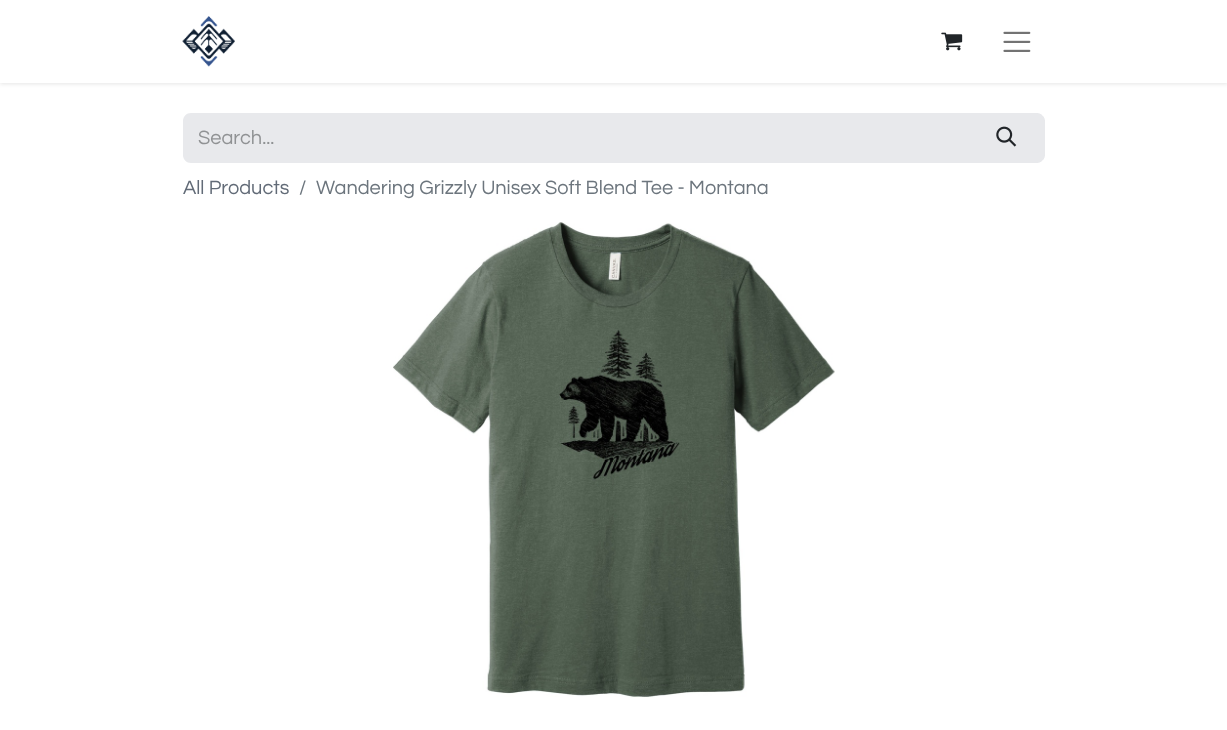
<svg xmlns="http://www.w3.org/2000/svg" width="1227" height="730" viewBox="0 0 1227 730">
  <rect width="100%" height="100%" fill="rgb(255,255,255)"/>
  <rect x="0" y="1" width="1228" height="83" fill="rgba(0,0,0,0.1)" filter="blur(2px)"/>
  <rect x="0" y="0" width="1227" height="83" fill="rgb(255,255,255)"/>
  <image x="182" y="16" width="53" height="51" href="pic1.png"/>
  <image x="941" y="32" width="22" height="19" href="pic2.png"/>
  <image x="1003" y="31" width="28" height="21" href="pic3.png"/>
  <path d="M191 113H970V163H191C186.5 163 183 159.5 183 155V121C183 116.5 186.5 113 191 113Z" fill="rgb(232,233,236)"/>
  <text x="198" y="144" font-family="Questrial" font-size="20" fill="rgb(144,146,148)">Search...</text>
  <path d="M969.5 113.5H1037C1041 113.5 1044.5 117 1044.5 121V155C1044.5 159 1041 162.5 1037 162.5H969.5Z" fill="rgb(232,233,236)" stroke="rgb(232,233,236)"/>
  <image x="996" y="126" width="21" height="21" href="pic4.png"/>
  <text x="183" y="194" font-family="Questrial" font-size="20" fill="rgb(98,107,119)">All Products</text>
  <g font-family="Questrial" font-size="20" fill="rgb(108,117,125)">
    <text x="299" y="194">/</text>
    <text x="316" y="194">Wandering Grizzly Unisex Soft Blend Tee - Montana</text>
  </g>
  <image x="393" y="222" width="442" height="476" href="pic5.png"/>
</svg>
